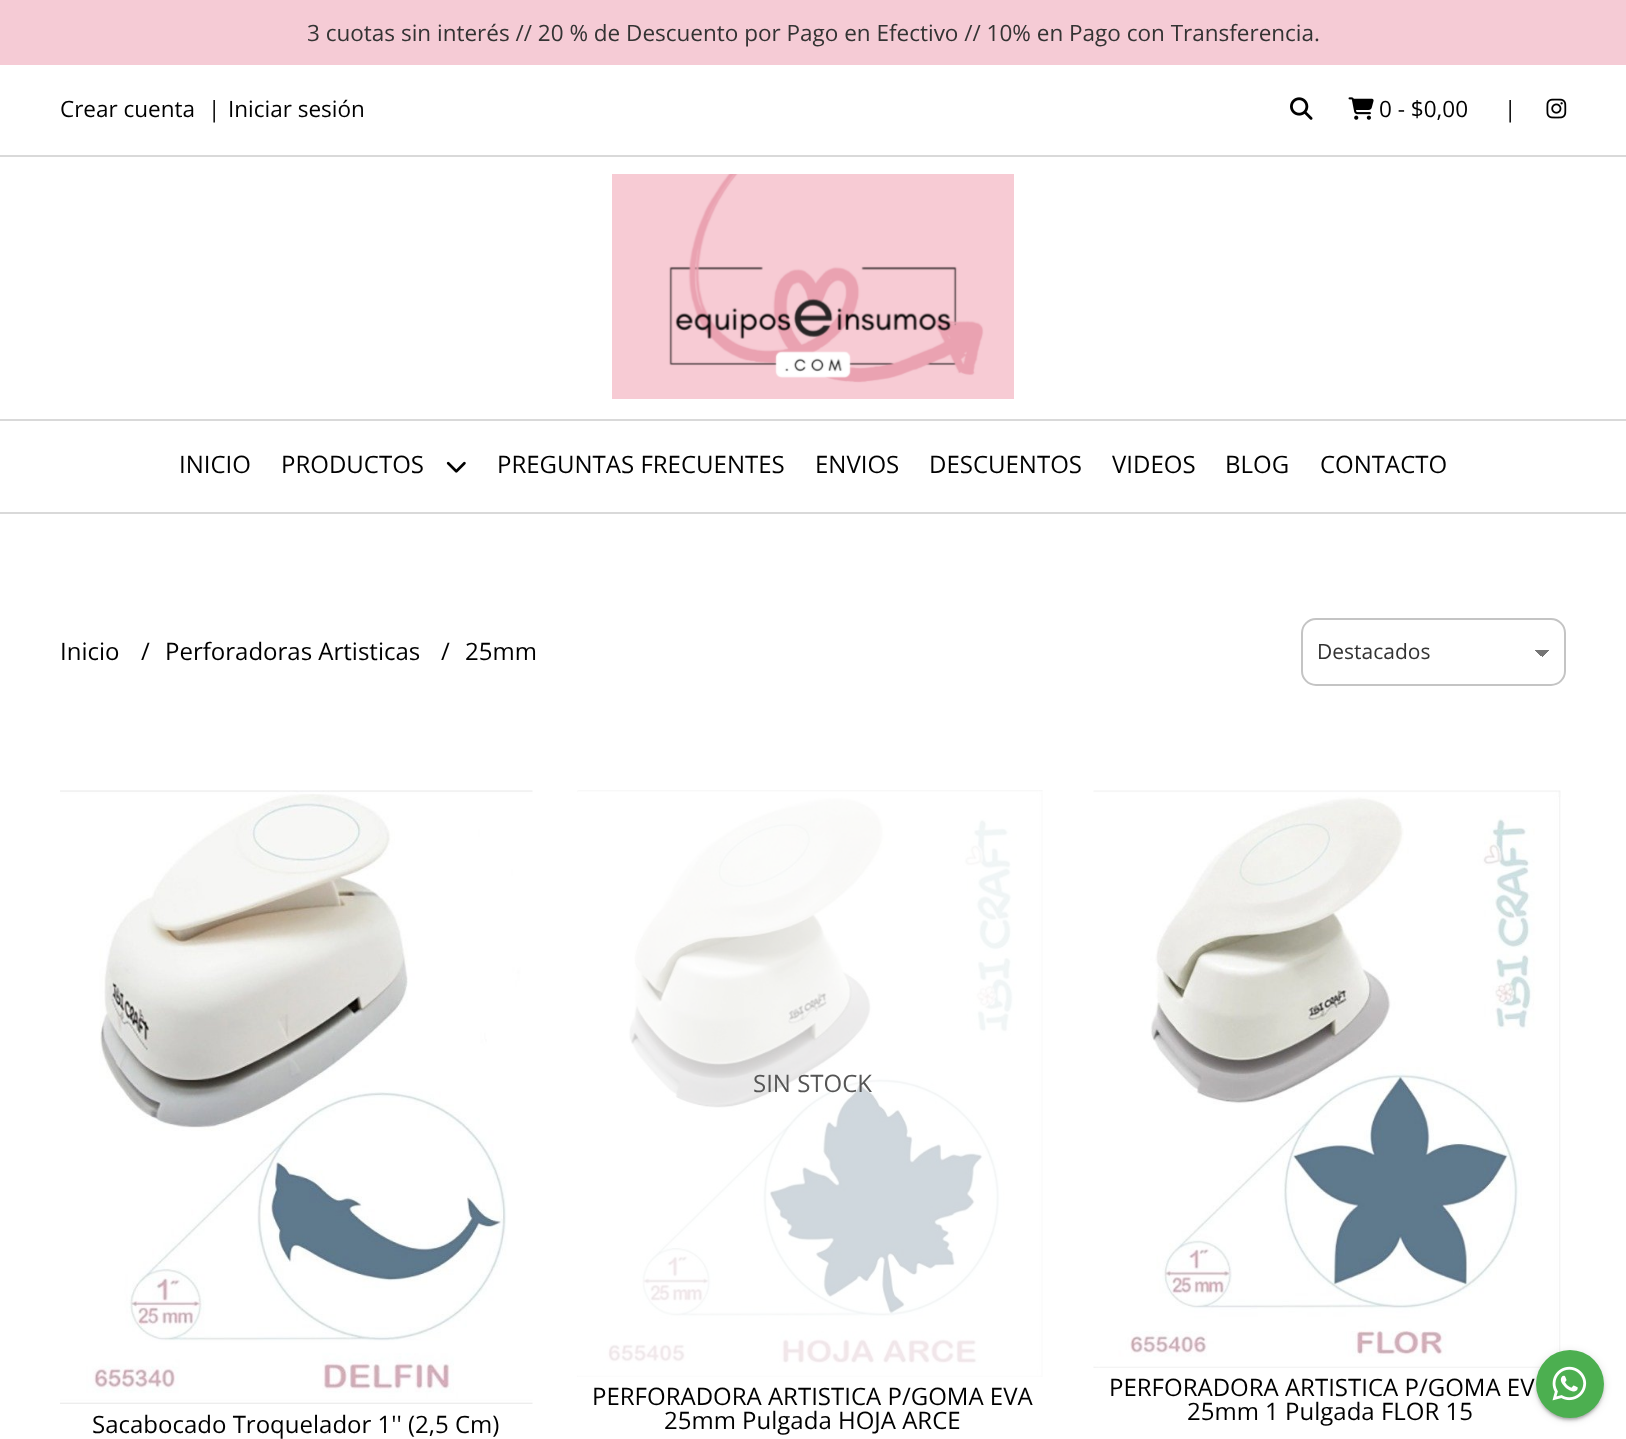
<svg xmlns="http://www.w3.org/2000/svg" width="1626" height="1439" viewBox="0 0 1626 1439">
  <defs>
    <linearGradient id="g1" gradientUnits="userSpaceOnUse" x1="1542" y1="650" x2="1550" y2="657"><stop offset="0.5" stop-color="rgb(117,117,117)"/><stop offset="0.5" stop-color="rgb(255,255,255)"/></linearGradient>
    <linearGradient id="g2" gradientUnits="userSpaceOnUse" x1="1535" y1="657" x2="1542" y2="650"><stop offset="0.5" stop-color="rgb(255,255,255)"/><stop offset="0.5" stop-color="rgb(117,117,117)"/></linearGradient>
  </defs>
  <rect width="100%" height="100%" fill="rgb(255,255,255)"/>
  <rect x="0" y="0" width="1626" height="65" fill="rgb(245,203,213)"/>
  <text x="307" y="41" font-family="Open Sans" font-size="22.5" fill="rgb(51,51,51)">3 cuotas sin interés // 20 % de Descuento por Pago en Efectivo // 10% en Pago con Transferencia.</text>
  <rect x="0" y="155" width="1626" height="2" fill="rgb(217,217,217)"/>
  <g font-family="Open Sans" font-size="22.5" fill="rgb(0,0,0)">
    <text x="60" y="117">Crear cuenta</text>
    <text x="208" y="117">|</text>
    <text x="228" y="117">Iniciar sesión</text>
  </g>
  <image x="1290" y="97" width="23" height="23" href="pic1.png"/>
  <image x="1348" y="97" width="26" height="23" href="pic2.png"/>
  <g font-family="Open Sans" font-size="22.5" fill="rgb(0,0,0)">
    <text x="1379" y="117">0 - $0,00</text>
    <text x="1504" y="117">|</text>
  </g>
  <image x="1546" y="98" width="21" height="21" href="pic3.png"/>
  <image x="612" y="174" width="402" height="225" href="pic4.png"/>
  <rect x="0" y="419" width="1626" height="2" fill="rgb(217,217,217)"/>
  <rect x="0" y="512" width="1626" height="2" fill="rgb(217,217,217)"/>
  <g font-family="Open Sans" font-size="24" fill="rgb(0,0,0)">
    <text x="179" y="473">INICIO</text>
    <text x="281" y="473">PRODUCTOS</text>
  </g>
  <image x="446" y="461" width="20" height="12" href="pic5.png"/>
  <g font-family="Open Sans" font-size="24" fill="rgb(0,0,0)">
    <text x="497" y="473">PREGUNTAS FRECUENTES</text>
    <text x="815" y="473">ENVIOS</text>
    <text x="929" y="473">DESCUENTOS</text>
    <text x="1112" y="473">VIDEOS</text>
    <text x="1225" y="473">BLOG</text>
    <text x="1320" y="473">CONTACTO</text>
    <text x="60" y="660">Inicio</text>
    <text x="141" y="660">/</text>
    <text x="165" y="660">Perforadoras Artisticas</text>
    <text x="441" y="660">/</text>
    <text x="465" y="660">25mm</text>
  </g>
  <rect x="1542" y="650" width="8" height="7" fill="url(#g1)"/>
  <rect x="1535" y="650" width="7" height="6" fill="url(#g2)"/>
  <rect x="1302" y="619" width="263" height="66" rx="14" fill="none" stroke="rgb(196,196,196)" stroke-width="2"/>
  <text x="1317" y="659" font-family="Open Sans" font-size="21" fill="rgb(51,51,51)">Destacados</text>
  <image x="60" y="790" width="473" height="614" href="pic6.png"/>
  <text x="92" y="1433" font-family="Open Sans" font-size="24" fill="rgb(0,0,0)">Sacabocado Troquelador 1'' (2,5 Cm)</text>
  <image x="577" y="790" width="466" height="587" href="pic7.png"/>
  <text x="753" y="1092" font-family="Open Sans" font-size="24" fill="rgb(85,85,85)">SIN STOCK</text>
  <g font-family="Open Sans" font-size="24" fill="rgb(0,0,0)">
    <text x="592" y="1405">PERFORADORA ARTISTICA P/GOMA EVA</text>
    <text x="664" y="1429">25mm Pulgada HOJA ARCE</text>
  </g>
  <image x="1093" y="790" width="468" height="578" href="pic8.png"/>
  <g font-family="Open Sans" font-size="24" fill="rgb(0,0,0)">
    <text x="1109" y="1396">PERFORADORA ARTISTICA P/GOMA EV</text>
    <text x="1187" y="1420">25mm 1 Pulgada FLOR 15</text>
  </g>
  <rect x="1539" y="1358" width="62" height="61" rx="30.5" fill="rgba(0,0,0,0.2)" filter="blur(1px)"/>
  <rect x="1536" y="1352" width="68" height="67" rx="33.5" fill="rgba(0,0,0,0.12)" filter="blur(4px)"/>
  <rect x="1536" y="1353" width="68" height="68" rx="34" fill="rgba(0,0,0,0.14)" filter="blur(1.5px)"/>
  <circle cx="1570" cy="1384" r="34" fill="rgb(76,175,80)"/>
  <image x="1552" y="1366" width="35" height="35" href="pic9.png"/>
</svg>
